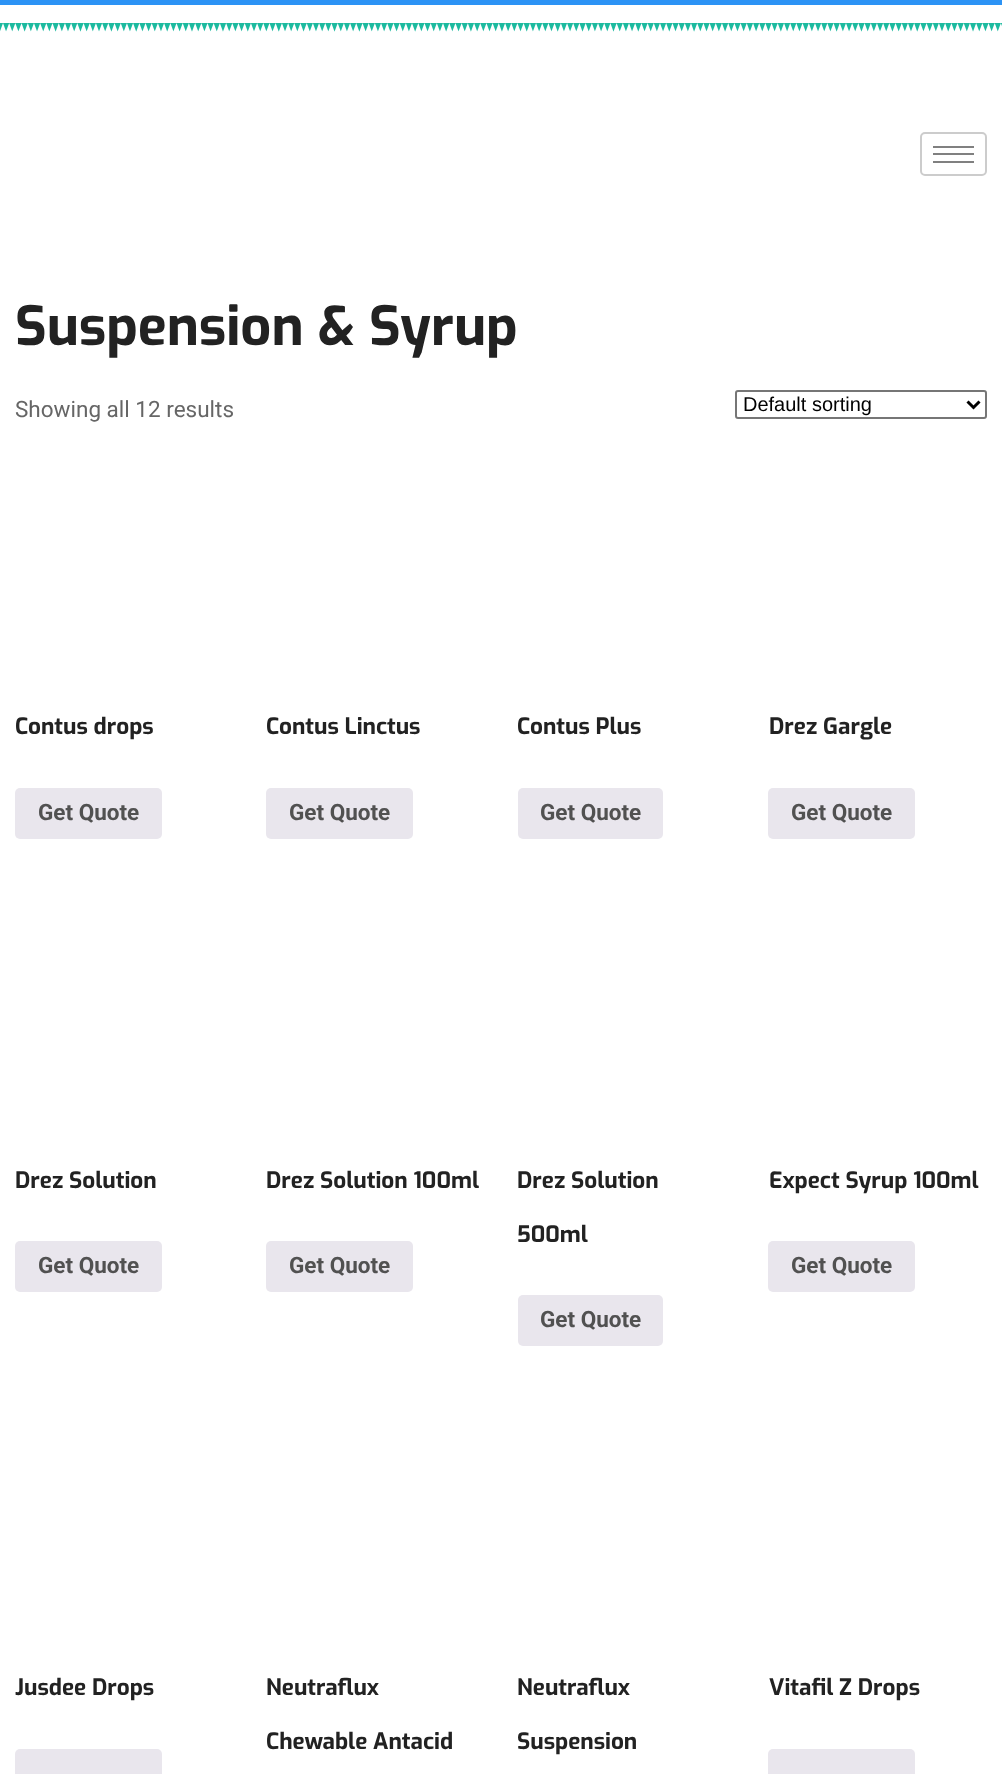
<svg xmlns="http://www.w3.org/2000/svg" width="1002" height="1774" viewBox="0 0 1002 1774">
  <rect width="100%" height="100%" fill="rgb(255,255,255)"/>
  <rect x="0" y="0" width="1002" height="5" fill="rgb(44,147,245)"/>
  <image x="0" y="23" width="1002" height="9" href="pic1.png"/>
  <rect x="921" y="133" width="65" height="42" rx="4" fill="none" stroke="rgb(204,204,204)" stroke-width="2"/>
  <rect x="933" y="146" width="41" height="2" fill="rgb(128,128,128)"/>
  <rect x="933" y="153" width="41" height="2" fill="rgb(128,128,128)"/>
  <rect x="933" y="161" width="41" height="2" fill="rgb(128,128,128)"/>
  <text x="15" y="345" font-family="Exo" font-size="54" font-weight="bold" fill="rgb(34,34,34)">Suspension &amp; Syrup</text>
  <text x="15" y="417" font-family="Roboto" font-size="22.5" fill="rgb(102,102,102)">Showing all 12 results</text>
  <rect x="736" y="391" width="250" height="27" rx="2" fill="none" stroke="rgb(118,118,118)" stroke-width="2"/>
  <path d="M967.5 401.5L973.5 407.5L979.5 401.5" fill="none" stroke="rgb(0,0,0)" stroke-width="3"/>
  <text x="743" y="411" font-family="Liberation Sans" font-size="20" fill="rgb(0,0,0)">Default sorting</text>
  <text x="15" y="734" font-family="Exo" font-size="22.5" font-weight="bold" fill="rgb(34,34,34)">Contus drops</text>
  <rect x="15" y="788" width="147" height="51" rx="5" fill="rgb(233,230,237)"/>
  <text x="38" y="820" font-family="Roboto" font-size="22.5" font-weight="bold" fill="rgb(81,81,81)">Get Quote</text>
  <text x="266" y="734" font-family="Exo" font-size="22.5" font-weight="bold" fill="rgb(34,34,34)">Contus Linctus</text>
  <rect x="266" y="788" width="147" height="51" rx="5" fill="rgb(233,230,237)"/>
  <text x="289" y="820" font-family="Roboto" font-size="22.5" font-weight="bold" fill="rgb(81,81,81)">Get Quote</text>
  <text x="517" y="734" font-family="Exo" font-size="22.5" font-weight="bold" fill="rgb(34,34,34)">Contus Plus</text>
  <rect x="518" y="788" width="145" height="51" rx="5" fill="rgb(233,230,237)"/>
  <text x="540" y="820" font-family="Roboto" font-size="22.5" font-weight="bold" fill="rgb(81,81,81)">Get Quote</text>
  <text x="769" y="734" font-family="Exo" font-size="22.5" font-weight="bold" fill="rgb(34,34,34)">Drez Gargle</text>
  <rect x="768" y="788" width="147" height="51" rx="5" fill="rgb(233,230,237)"/>
  <text x="791" y="820" font-family="Roboto" font-size="22.5" font-weight="bold" fill="rgb(81,81,81)">Get Quote</text>
  <text x="15" y="1188" font-family="Exo" font-size="22.5" font-weight="bold" fill="rgb(34,34,34)">Drez Solution</text>
  <rect x="15" y="1241" width="147" height="51" rx="5" fill="rgb(233,230,237)"/>
  <text x="38" y="1273" font-family="Roboto" font-size="22.5" font-weight="bold" fill="rgb(81,81,81)">Get Quote</text>
  <text x="266" y="1188" font-family="Exo" font-size="22.5" font-weight="bold" fill="rgb(34,34,34)">Drez Solution 100ml</text>
  <rect x="266" y="1241" width="147" height="51" rx="5" fill="rgb(233,230,237)"/>
  <text x="289" y="1273" font-family="Roboto" font-size="22.5" font-weight="bold" fill="rgb(81,81,81)">Get Quote</text>
  <g font-family="Exo" font-size="22.5" font-weight="bold" fill="rgb(34,34,34)">
    <text x="517" y="1188">Drez Solution</text>
    <text x="517" y="1242">500ml</text>
  </g>
  <rect x="518" y="1295" width="145" height="51" rx="5" fill="rgb(233,230,237)"/>
  <text x="540" y="1327" font-family="Roboto" font-size="22.5" font-weight="bold" fill="rgb(81,81,81)">Get Quote</text>
  <text x="769" y="1188" font-family="Exo" font-size="22.5" font-weight="bold" fill="rgb(34,34,34)">Expect Syrup 100ml</text>
  <rect x="768" y="1241" width="147" height="51" rx="5" fill="rgb(233,230,237)"/>
  <text x="791" y="1273" font-family="Roboto" font-size="22.5" font-weight="bold" fill="rgb(81,81,81)">Get Quote</text>
  <text x="15" y="1695" font-family="Exo" font-size="22.5" font-weight="bold" fill="rgb(34,34,34)">Jusdee Drops</text>
  <rect x="15" y="1749" width="147" height="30" rx="5" fill="rgb(233,230,237)"/>
  <g font-family="Exo" font-size="22.5" font-weight="bold" fill="rgb(34,34,34)">
    <text x="266" y="1695">Neutraflux</text>
    <text x="266" y="1749">Chewable Antacid</text>
    <text x="517" y="1695">Neutraflux</text>
    <text x="517" y="1749">Suspension</text>
    <text x="769" y="1695">Vitafil Z Drops</text>
  </g>
  <rect x="768" y="1749" width="147" height="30" rx="5" fill="rgb(233,230,237)"/>
</svg>
